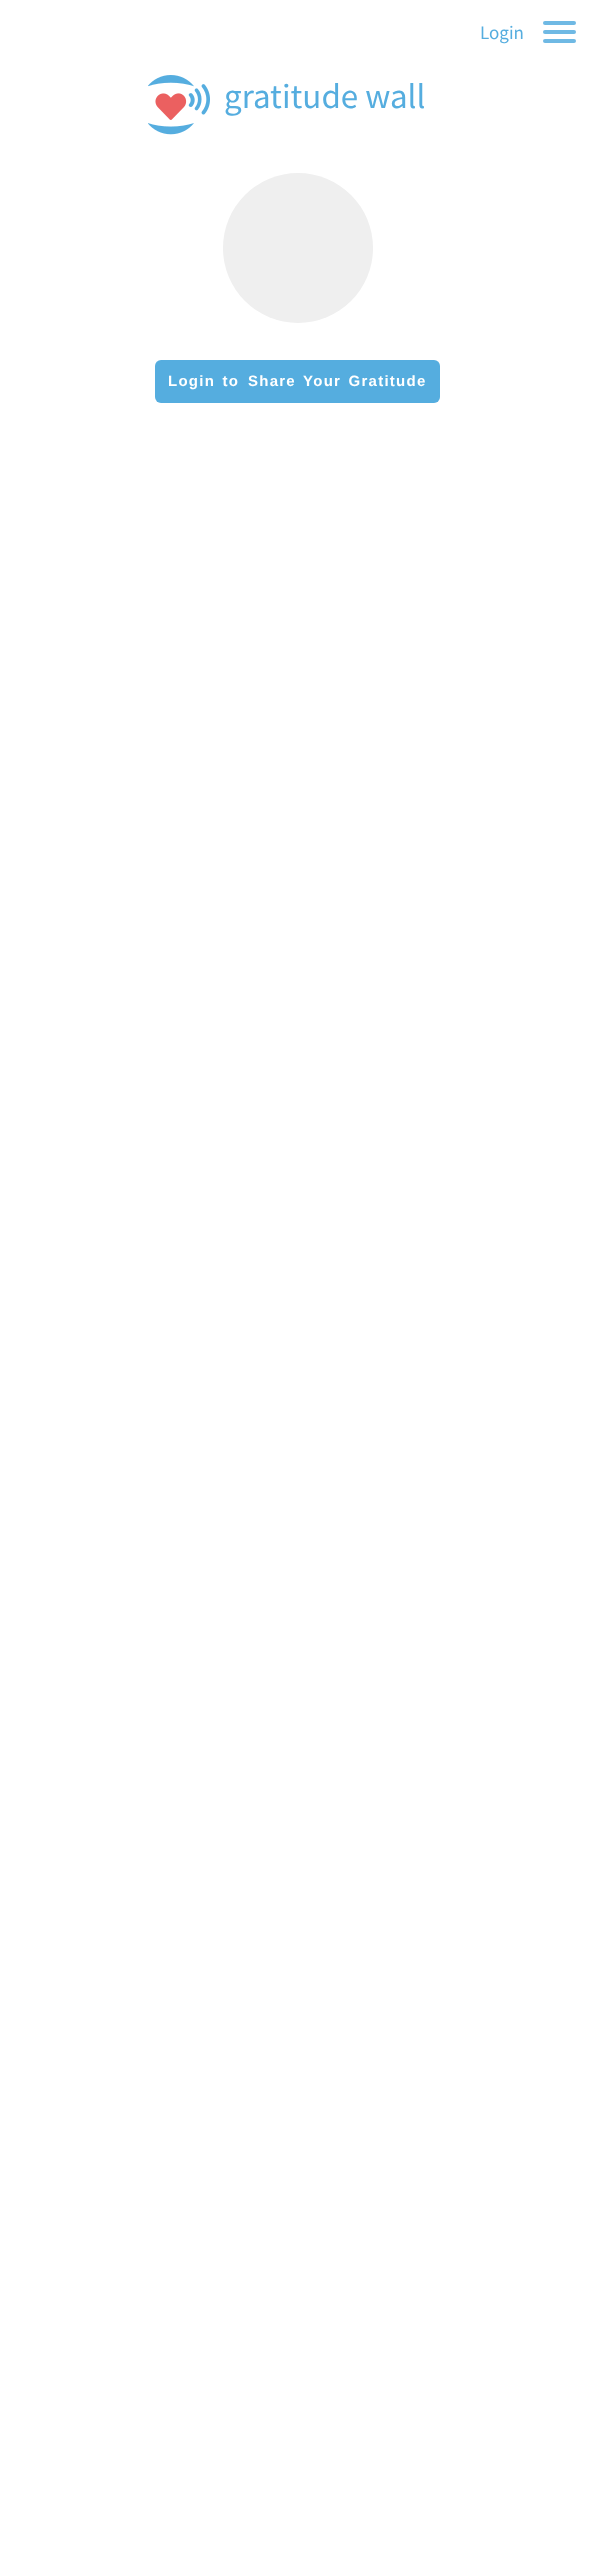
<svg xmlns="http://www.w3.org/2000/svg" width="594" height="2553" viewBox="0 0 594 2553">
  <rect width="100%" height="100%" fill="rgb(255,255,255)"/>
  <text x="480" y="39" font-family="Source Sans Pro" font-size="19" fill="rgb(85,173,223)">Login</text>
  <rect x="543" y="21" width="33" height="4" rx="2" fill="rgb(111,185,228)"/>
  <rect x="543" y="30" width="33" height="4" rx="2" fill="rgb(111,185,228)"/>
  <rect x="543" y="39" width="33" height="4" rx="2" fill="rgb(111,185,228)"/>
  <image x="148" y="75" width="62" height="60" href="pic1.png"/>
  <text x="224" y="108" font-family="Source Sans Pro" font-size="35" fill="rgb(85,173,223)">gratitude wall</text>
  <circle cx="298" cy="248" r="75" fill="rgb(239,239,239)"/>
  <rect x="155" y="360" width="285" height="43" rx="6" fill="rgb(85,173,223)"/>
  <g font-family="Liberation Sans" font-size="15" font-weight="bold" letter-spacing="1.25" fill="rgb(255,255,255)">
    <text x="168" y="386" word-spacing="2">Login to</text>
    <text x="248" y="386" word-spacing="2">Share Your Gratitude</text>
  </g>
</svg>
